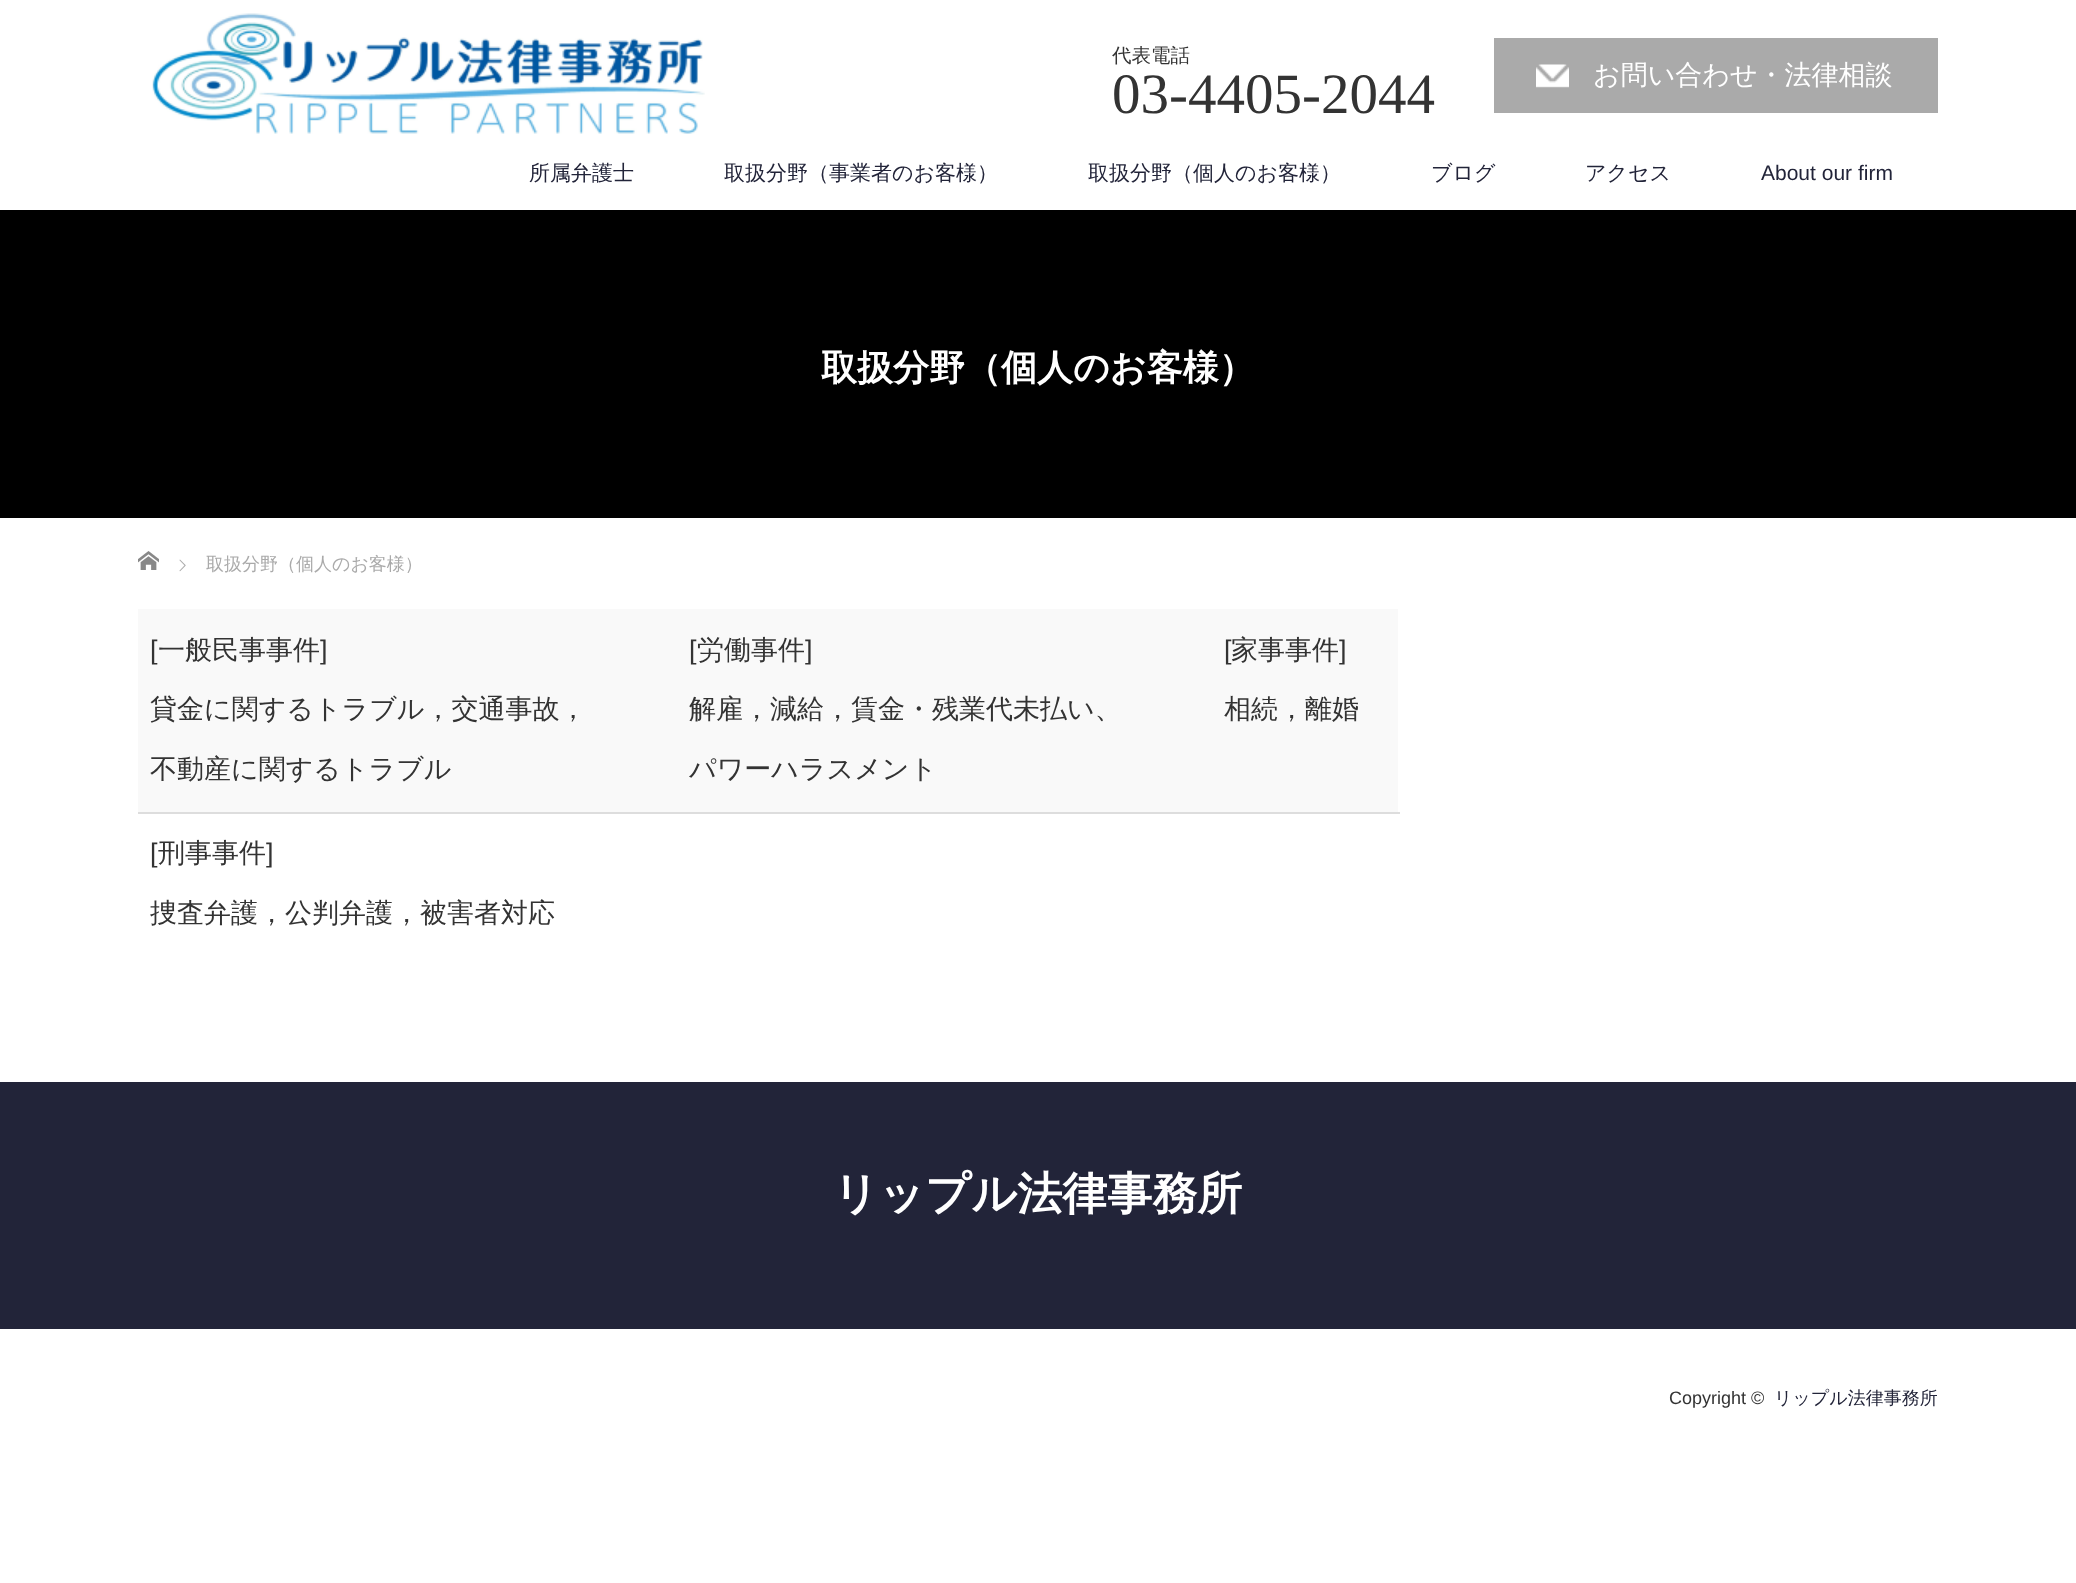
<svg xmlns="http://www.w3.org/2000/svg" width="2076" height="1583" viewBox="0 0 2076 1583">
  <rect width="100%" height="100%" fill="rgb(255,255,255)"/>
  <image x="152" y="13" width="553" height="121" href="pic1.png"/>
  <text x="1112" y="62" font-family="WenQuanYi Zen Hei" font-size="19.5" font-weight="500" fill="rgb(51,51,51)">代表電話</text>
  <text x="1112" y="113" font-family="Liberation Serif" font-size="57" fill="rgb(51,51,51)">03-4405-2044</text>
  <rect x="1494" y="38" width="444" height="75" fill="rgb(170,170,170)"/>
  <image x="1536" y="64" width="33" height="24" href="pic2.png"/>
  <text x="1593" y="84" font-family="WenQuanYi Zen Hei" font-size="27" font-weight="500" fill="rgb(255,255,255)">お問い合わせ・法律相談</text>
  <g font-family="WenQuanYi Zen Hei" font-size="21" font-weight="500" fill="rgb(34,36,57)">
    <text x="529" y="180">所属弁護士</text>
    <text x="724" y="180">取扱分野（事業者のお客様）</text>
    <text x="1088" y="180">取扱分野（個人のお客様）</text>
    <text x="1431" y="180">ブログ</text>
    <text x="1585" y="180">アクセス</text>
  </g>
  <text x="1761" y="180" font-family="Liberation Sans" font-size="21" fill="rgb(34,36,57)">About our firm</text>
  <rect x="0" y="210" width="2076" height="308" fill="rgb(0,0,0)"/>
  <text x="821" y="380" font-family="WenQuanYi Zen Hei" font-size="36" font-weight="bold" fill="rgb(255,255,255)">取扱分野（個人のお客様）</text>
  <image x="138" y="551" width="21" height="19" href="pic3.png"/>
  <image x="179" y="559" width="7" height="13" href="pic4.png"/>
  <text x="206" y="570" font-family="WenQuanYi Zen Hei" font-size="18" font-weight="500" fill="rgb(170,170,170)">取扱分野（個人のお客様）</text>
  <rect x="138" y="609" width="1260" height="203" fill="rgb(249,249,249)"/>
  <text x="150" y="659" font-family="Liberation Sans" font-size="27" fill="rgb(51,51,51)">[</text>
  <text x="158" y="659" font-family="WenQuanYi Zen Hei" font-size="27" font-weight="500" fill="rgb(51,51,51)">一般民事事件</text>
  <text x="320" y="659" font-family="Liberation Sans" font-size="27" fill="rgb(51,51,51)">]</text>
  <g font-family="WenQuanYi Zen Hei" font-size="27" font-weight="500" fill="rgb(51,51,51)">
    <text x="150" y="718">貸金に関するトラブル，交通事故，</text>
    <text x="150" y="778">不動産に関するトラブル</text>
  </g>
  <text x="689" y="659" font-family="Liberation Sans" font-size="27" fill="rgb(51,51,51)">[</text>
  <text x="697" y="659" font-family="WenQuanYi Zen Hei" font-size="27" font-weight="500" fill="rgb(51,51,51)">労働事件</text>
  <text x="805" y="659" font-family="Liberation Sans" font-size="27" fill="rgb(51,51,51)">]</text>
  <g font-family="WenQuanYi Zen Hei" font-size="27" font-weight="500" fill="rgb(51,51,51)">
    <text x="689" y="718">解雇，減給，賃金・残業代未払い、</text>
    <text x="689" y="778">パワーハラスメント</text>
  </g>
  <text x="1224" y="659" font-family="Liberation Sans" font-size="27" fill="rgb(51,51,51)">[</text>
  <text x="1231" y="659" font-family="WenQuanYi Zen Hei" font-size="27" font-weight="500" fill="rgb(51,51,51)">家事事件</text>
  <text x="1339" y="659" font-family="Liberation Sans" font-size="27" fill="rgb(51,51,51)">]</text>
  <text x="1224" y="718" font-family="WenQuanYi Zen Hei" font-size="27" font-weight="500" fill="rgb(51,51,51)">相続，離婚</text>
  <rect x="138" y="812" width="1262" height="2" fill="rgb(221,221,221)"/>
  <text x="150" y="862" font-family="Liberation Sans" font-size="27" fill="rgb(51,51,51)">[</text>
  <text x="158" y="862" font-family="WenQuanYi Zen Hei" font-size="27" font-weight="500" fill="rgb(51,51,51)">刑事事件</text>
  <text x="266" y="862" font-family="Liberation Sans" font-size="27" fill="rgb(51,51,51)">]</text>
  <text x="150" y="922" font-family="WenQuanYi Zen Hei" font-size="27" font-weight="500" fill="rgb(51,51,51)">捜査弁護，公判弁護，被害者対応</text>
  <rect x="0" y="1082" width="2076" height="247" fill="rgb(34,36,57)"/>
  <text x="833" y="1209" font-family="WenQuanYi Zen Hei" font-size="45" font-weight="bold" fill="rgb(255,255,255)">リップル法律事務所</text>
  <text x="1669" y="1404" font-family="Liberation Sans" font-size="18" fill="rgb(51,51,51)">Copyright ©</text>
  <text x="1774" y="1404" font-family="WenQuanYi Zen Hei" font-size="18" font-weight="500" fill="rgb(34,36,57)">リップル法律事務所</text>
</svg>
